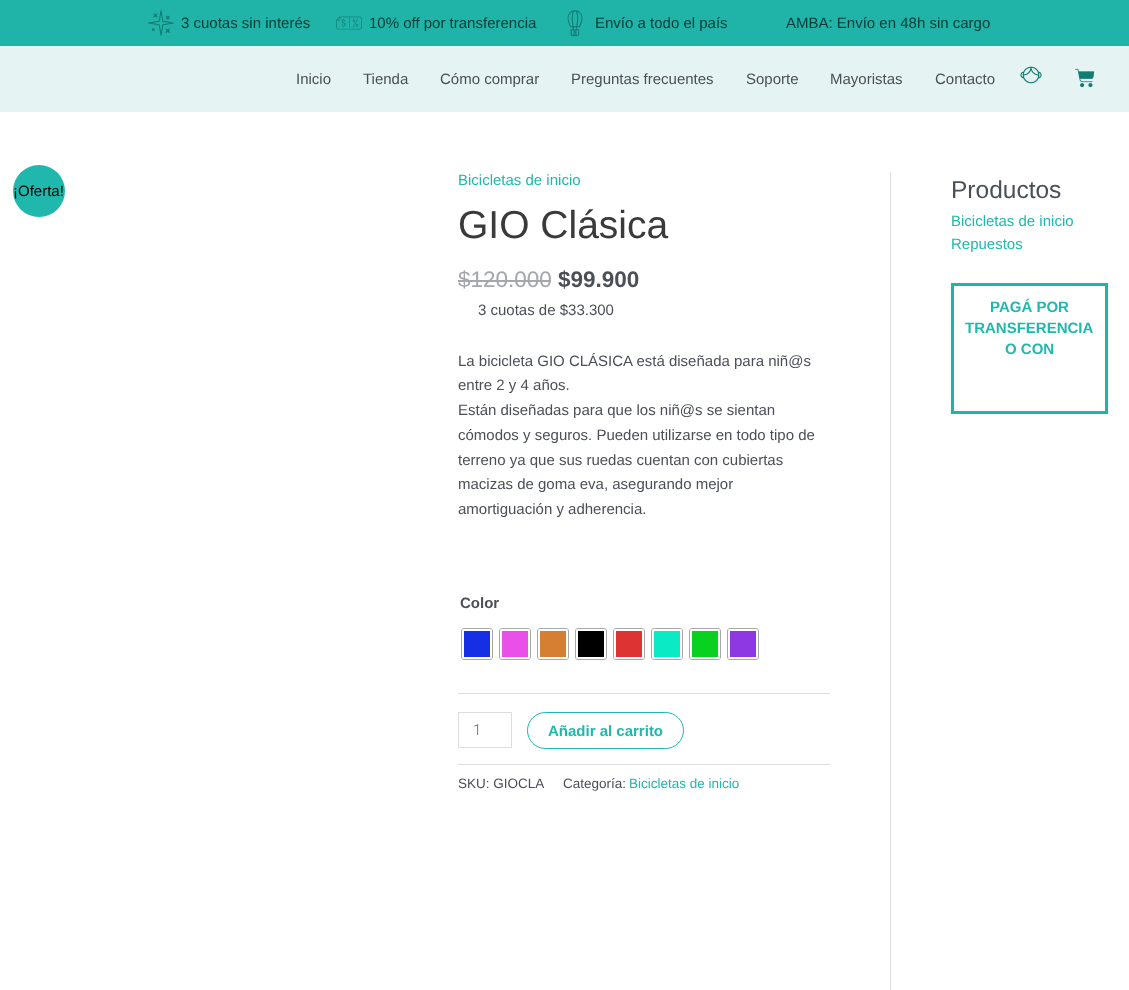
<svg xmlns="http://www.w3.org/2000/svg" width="1129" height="990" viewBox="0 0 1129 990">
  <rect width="100%" height="100%" fill="rgb(255,255,255)"/>
  <rect x="0" y="0" width="1129" height="46" fill="rgb(32,179,168)"/>
  <image x="148" y="10" width="26" height="26" href="pic1.png"/>
  <text x="181" y="28" font-family="Liberation Sans" font-size="15" fill="rgb(4,59,55)">3 cuotas sin interés</text>
  <image x="336" y="16" width="26" height="14" href="pic2.png"/>
  <text x="369" y="28" font-family="Liberation Sans" font-size="15" fill="rgb(4,59,55)">10% off por transferencia</text>
  <image x="567" y="10" width="16" height="26" href="pic3.png"/>
  <g font-family="Liberation Sans" font-size="15" fill="rgb(4,59,55)">
    <text x="595" y="28">Envío a todo el país</text>
    <text x="786" y="28">AMBA: Envío en 48h sin cargo</text>
  </g>
  <rect x="0" y="46" width="1129" height="66" fill="rgb(229,244,243)"/>
  <g font-family="Liberation Sans" font-size="15" fill="rgb(75,79,88)">
    <text x="296" y="84">Inicio</text>
    <text x="363" y="84">Tienda</text>
    <text x="440" y="84">Cómo comprar</text>
    <text x="571" y="84">Preguntas frecuentes</text>
    <text x="746" y="84">Soporte</text>
    <text x="830" y="84">Mayoristas</text>
    <text x="935" y="84">Contacto</text>
  </g>
  <image x="1020" y="66" width="22" height="18" href="pic4.png"/>
  <image x="1075" y="68" width="20" height="20" href="pic5.png"/>
  <rect x="890" y="172" width="1" height="818" fill="rgb(221,221,221)"/>
  <circle cx="39" cy="191" r="26" fill="rgb(32,183,172)"/>
  <text x="13" y="196" font-family="Liberation Sans" font-size="15" fill="rgb(0,0,0)">¡Oferta!</text>
  <text x="458" y="185" font-family="Liberation Sans" font-size="15" fill="rgb(32,183,172)">Bicicletas de inicio</text>
  <text x="458" y="238" font-family="Liberation Sans" font-size="39" fill="rgb(58,58,58)">GIO Clásica</text>
  <text x="458" y="287" font-family="Liberation Sans" font-size="22.5" fill="rgb(165,167,172)">$120.000</text>
  <rect x="458" y="280" width="93" height="2" fill="rgb(165,167,172)"/>
  <text x="558" y="287" font-family="Liberation Sans" font-size="22.5" font-weight="bold" fill="rgb(75,79,88)">$99.900</text>
  <g font-family="Liberation Sans" font-size="15" fill="rgb(75,79,88)">
    <text x="478" y="315">3 cuotas de $33.300</text>
    <text>
      <tspan x="458" y="366">La bicicleta GIO CLÁSICA está diseñada para niñ@s</tspan>
      <tspan x="458" y="390">entre 2 y 4 años.</tspan>
      <tspan x="458" y="415">Están diseñadas para que los niñ@s se sientan</tspan>
      <tspan x="458" y="440">cómodos y seguros. Pueden utilizarse en todo tipo de</tspan>
      <tspan x="458" y="465">terreno ya que sus ruedas cuentan con cubiertas</tspan>
      <tspan x="458" y="489">macizas de goma eva, asegurando mejor</tspan>
      <tspan x="458" y="514">amortiguación y adherencia.</tspan>
    </text>
  </g>
  <rect x="458" y="693" width="372" height="1" fill="rgb(221,221,221)"/>
  <text x="460" y="608" font-family="Liberation Sans" font-size="15" font-weight="bold" fill="rgb(75,79,88)">Color</text>
  <rect x="461.5" y="628.5" width="31" height="31" rx="2.5" fill="none" stroke="rgb(168,168,168)"/>
  <rect x="462" y="629" width="30" height="30" rx="2" fill="rgb(255,255,255)"/>
  <rect x="464" y="631" width="26" height="26" fill="rgb(22,47,229)"/>
  <rect x="499.5" y="628.5" width="31" height="31" rx="2.5" fill="none" stroke="rgb(168,168,168)"/>
  <rect x="500" y="629" width="30" height="30" rx="2" fill="rgb(255,255,255)"/>
  <rect x="502" y="631" width="26" height="26" fill="rgb(234,79,234)"/>
  <rect x="537.5" y="628.5" width="31" height="31" rx="2.5" fill="none" stroke="rgb(168,168,168)"/>
  <rect x="538" y="629" width="30" height="30" rx="2" fill="rgb(255,255,255)"/>
  <rect x="540" y="631" width="26" height="26" fill="rgb(214,126,49)"/>
  <rect x="575.5" y="628.5" width="31" height="31" rx="2.5" fill="none" stroke="rgb(168,168,168)"/>
  <rect x="576" y="629" width="30" height="30" rx="2" fill="rgb(255,255,255)"/>
  <rect x="578" y="631" width="26" height="26" fill="rgb(0,0,0)"/>
  <rect x="613.5" y="628.5" width="31" height="31" rx="2.5" fill="none" stroke="rgb(168,168,168)"/>
  <rect x="614" y="629" width="30" height="30" rx="2" fill="rgb(255,255,255)"/>
  <rect x="616" y="631" width="26" height="26" fill="rgb(221,51,51)"/>
  <rect x="651.5" y="628.5" width="31" height="31" rx="2.5" fill="none" stroke="rgb(168,168,168)"/>
  <rect x="652" y="629" width="30" height="30" rx="2" fill="rgb(255,255,255)"/>
  <rect x="654" y="631" width="26" height="26" fill="rgb(9,234,197)"/>
  <rect x="689.5" y="628.5" width="31" height="31" rx="2.5" fill="none" stroke="rgb(168,168,168)"/>
  <rect x="690" y="629" width="30" height="30" rx="2" fill="rgb(255,255,255)"/>
  <rect x="692" y="631" width="26" height="26" fill="rgb(8,209,31)"/>
  <rect x="727.5" y="628.5" width="31" height="31" rx="2.5" fill="none" stroke="rgb(168,168,168)"/>
  <rect x="728" y="629" width="30" height="30" rx="2" fill="rgb(255,255,255)"/>
  <rect x="730" y="631" width="26" height="26" fill="rgb(141,56,226)"/>
  <rect x="458.5" y="712.5" width="53" height="35" fill="none" stroke="rgb(221,221,221)"/>
  <text x="473" y="735" font-family="Roboto" font-size="15" font-weight="300" fill="rgb(102,102,102)">1</text>
  <rect x="527.5" y="712.5" width="156" height="36" rx="18" fill="none" stroke="rgb(32,183,172)"/>
  <text x="548" y="736" font-family="Liberation Sans" font-size="15" font-weight="bold" fill="rgb(32,183,172)">Añadir al carrito</text>
  <rect x="458" y="764" width="372" height="1" fill="rgb(221,221,221)"/>
  <g font-family="Liberation Sans" font-size="13.5" fill="rgb(75,79,88)">
    <text x="458" y="788">SKU: GIOCLA</text>
    <text x="563" y="788">Categoría:</text>
  </g>
  <text x="629" y="788" font-family="Liberation Sans" font-size="13.5" fill="rgb(32,183,172)">Bicicletas de inicio</text>
  <text x="951" y="198" font-family="Liberation Sans" font-size="24.5" fill="rgb(75,79,88)">Productos</text>
  <g font-family="Liberation Sans" font-size="15" fill="rgb(32,183,172)">
    <text>
      <tspan x="951" y="226">Bicicletas de inicio</tspan>
      <tspan x="951" y="249">Repuestos</tspan>
    </text>
  </g>
  <rect x="952.5" y="284.5" width="154" height="128" fill="none" stroke="rgb(32,180,169)" stroke-width="3"/>
  <g font-family="Liberation Sans" font-size="15" font-weight="bold" fill="rgb(32,183,172)">
    <text x="990" y="312">PAGÁ POR</text>
    <text x="965" y="333">TRANSFERENCIA</text>
    <text x="1005" y="354">O CON</text>
  </g>
</svg>
